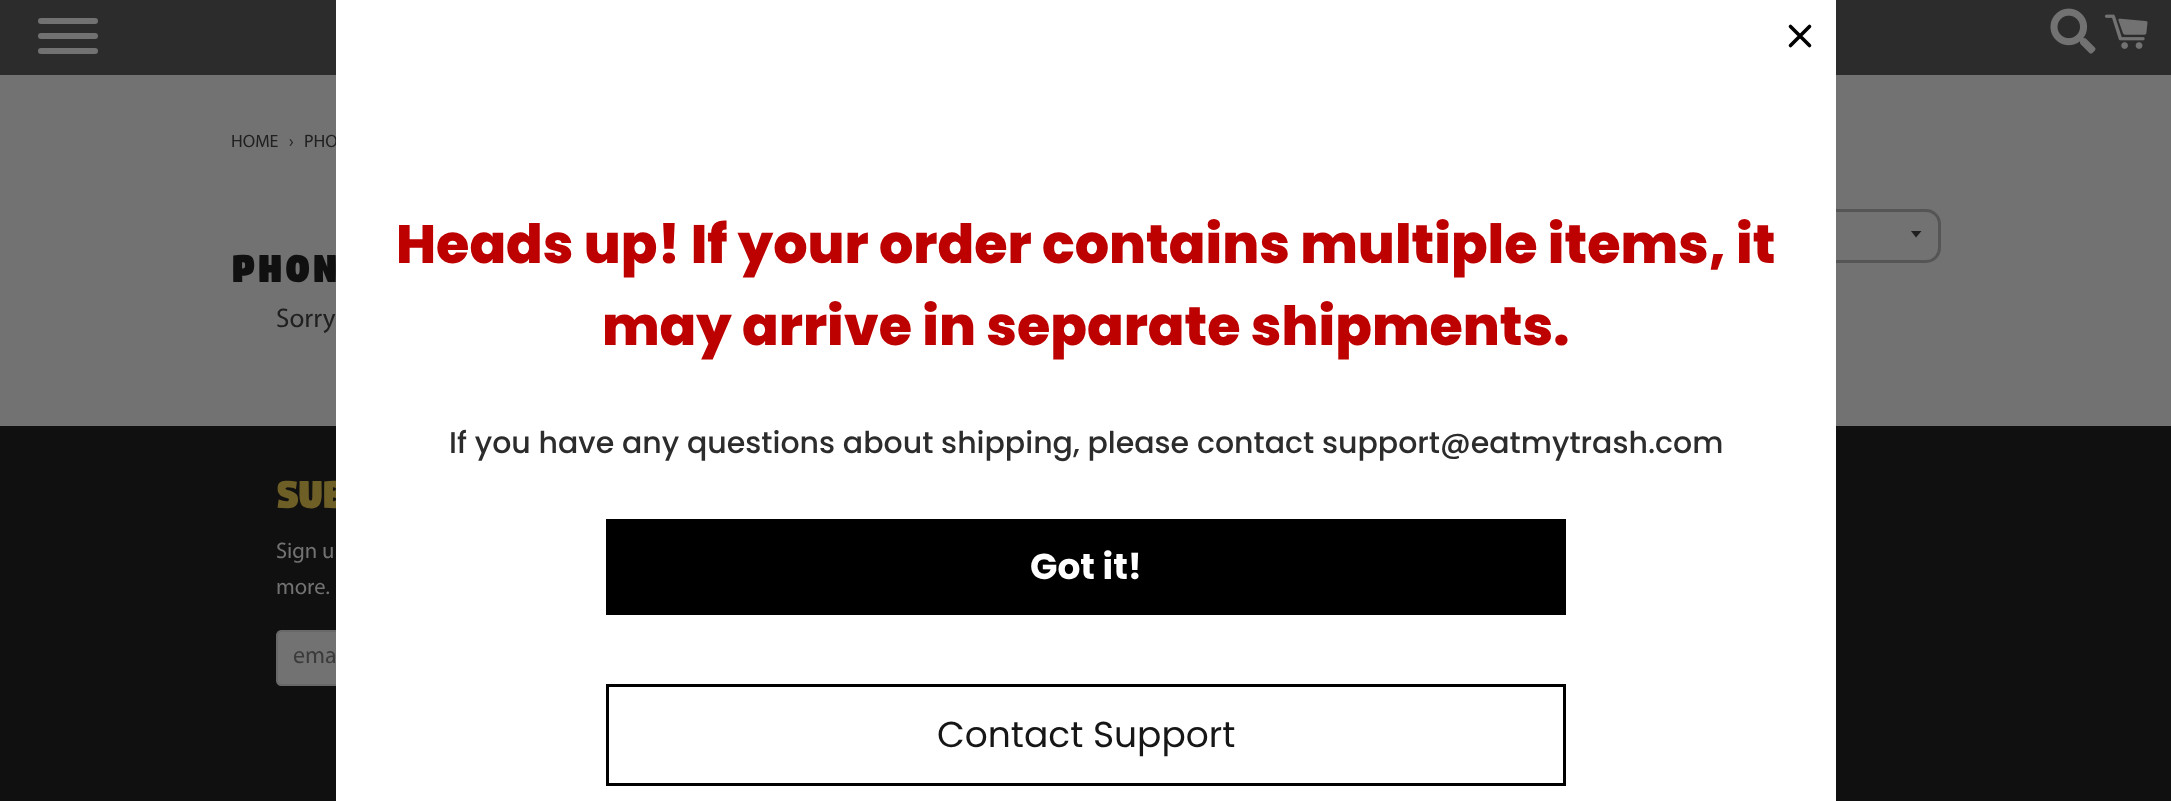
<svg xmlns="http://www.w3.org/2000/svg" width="2171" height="801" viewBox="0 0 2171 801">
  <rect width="100%" height="100%" fill="rgb(114,114,114)"/>
  <rect x="0" y="0" width="2171" height="75" fill="rgb(44,44,44)"/>
  <rect x="38" y="33" width="60" height="6" rx="3" fill="rgb(114,114,114)"/>
  <rect x="38" y="18" width="60" height="6" rx="3" fill="rgb(114,114,114)"/>
  <rect x="38" y="48" width="60" height="6" rx="3" fill="rgb(114,114,114)"/>
  <image x="2050" y="8" width="46" height="46" href="pic1.png"/>
  <image x="2104" y="14" width="44" height="35" href="pic2.png"/>
  <g font-family="Myriad" font-size="18" fill="rgb(32,32,32)">
    <text x="231" y="147">HOME</text>
    <text x="289" y="147">›</text>
    <text x="304" y="147">PHO</text>
  </g>
  <path d="M1911 231L1916 237.5L1921.5 231Z" fill="rgb(32,32,32)"/>
  <rect x="1689.5" y="210.5" width="250" height="51" rx="13.5" fill="none" stroke="rgb(85,85,85)" stroke-width="3"/>
  <text x="231" y="282" font-family="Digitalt" font-size="45" font-weight="500" letter-spacing="3" fill="rgb(16,16,16)">PHON</text>
  <text x="276" y="327" font-family="Myriad" font-size="27" fill="rgb(32,32,32)">Sorry</text>
  <rect x="0" y="426" width="2171" height="375" fill="rgb(16,16,16)"/>
  <text x="276" y="508" font-family="Digitalt" font-size="45" font-weight="500" fill="rgb(110,95,38)">SUB</text>
  <path d="M281 631H647V685H281C279 685 277 683 277 681V635C277 633 279 631 281 631Z" fill="rgb(114,114,114)" stroke="rgb(104,104,104)" stroke-width="2"/>
  <rect x="336" y="0" width="1500" height="801" fill="rgb(255,255,255)"/>
  <path d="M1790.5 26.5L1809.5 45.5M1790.5 45.5L1809.5 26.5Z" fill="none" stroke="rgb(0,0,0)" stroke-width="3.6" stroke-linecap="round" stroke-linejoin="round"/>
  <g font-family="Poppins" font-size="54" font-weight="800" fill="rgb(189,0,0)">
    <text x="396" y="263">Heads up! If your order contains multiple items, it</text>
    <text x="602" y="345">may arrive in separate shipments.</text>
  </g>
  <text x="449" y="453" font-family="Poppins" font-size="30" font-weight="500" fill="rgb(44,44,44)">If you have any questions about shipping, please contact support@eatmytrash.com</text>
  <rect x="606" y="519" width="960" height="96" fill="rgb(0,0,0)"/>
  <text x="1030" y="579" font-family="Poppins" font-size="36" font-weight="bold" fill="rgb(255,255,255)">Got it!</text>
  <rect x="607.5" y="685.5" width="957" height="99" fill="none" stroke="rgb(0,0,0)" stroke-width="3"/>
  <text x="937" y="747" font-family="Poppins" font-size="36" fill="rgb(22,22,22)">Contact Support</text>
  <g font-family="Myriad" font-size="22.5" fill="rgb(114,114,114)">
    <text>
      <tspan x="276" y="558">Sign u</tspan>
      <tspan x="276" y="594">more.</tspan>
    </text>
  </g>
  <text x="293" y="663" font-family="Myriad" font-size="24" fill="rgb(59,59,59)">ema</text>
</svg>
